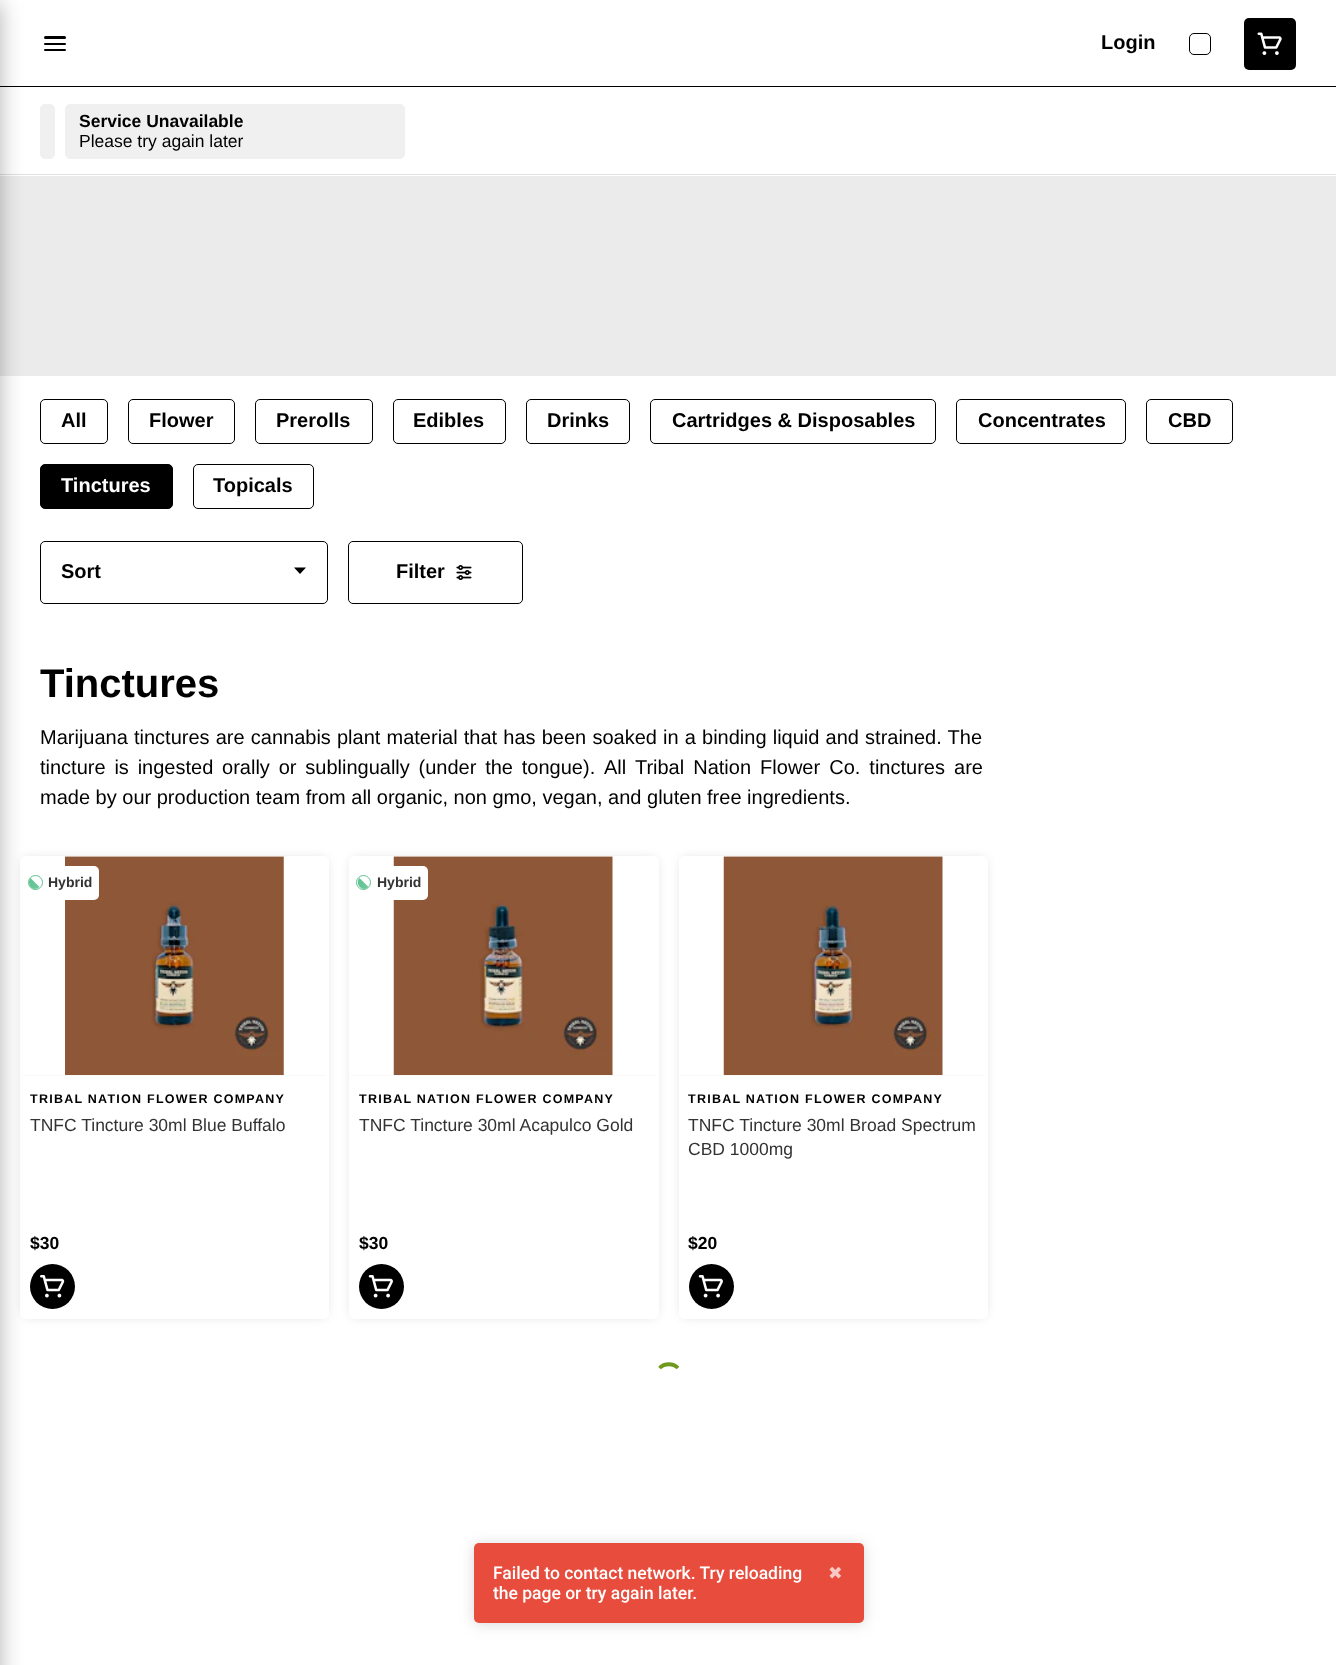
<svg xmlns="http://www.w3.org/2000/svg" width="1336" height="1665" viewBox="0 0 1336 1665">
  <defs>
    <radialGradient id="g1" gradientUnits="userSpaceOnUse" cx="28" cy="880" r="125"><stop offset="0" stop-color="rgb(94,194,145)"/><stop offset="1" stop-color="rgb(255,255,255)"/></radialGradient>
    <radialGradient id="g2" gradientUnits="userSpaceOnUse" cx="357" cy="880" r="125"><stop offset="0" stop-color="rgb(94,194,145)"/><stop offset="1" stop-color="rgb(255,255,255)"/></radialGradient>
  </defs>
  <rect width="100%" height="100%" fill="rgb(255,255,255)"/>
  <rect x="0" y="86" width="1336" height="1" fill="rgb(0,0,0)"/>
  <rect x="0" y="174" width="1336" height="1" fill="rgb(225,225,225)"/>
  <rect x="0" y="176" width="1336" height="200" fill="rgb(235,235,235)"/>
  <rect x="24" y="860" width="301" height="455" rx="1" fill="rgba(0,0,0,0.2)" filter="blur(6px)"/>
  <rect x="20" y="856" width="309" height="463" rx="5" fill="rgb(255,255,255)"/>
  <rect x="23" y="1075" width="303" height="1" fill="rgb(248,248,248)"/>
  <image x="65" y="856" width="219" height="219" href="pic3.png"/>
  <rect x="20" y="866" width="79" height="34" rx="5" fill="rgb(255,255,255)"/>
  <circle cx="35.5" cy="882.5" r="7" fill="none" stroke="rgb(94,194,145)"/>
  <path d="M30.5 887C33 889.5 37 889.5 39.5 887L30.5 878C28.5 880.5 28.5 884.5 30.5 887Z" fill="url(#g1)"/>
  <circle cx="52.5" cy="1286.5" r="22.5" fill="rgb(0,0,0)"/>
  <rect x="-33" y="3" width="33" height="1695" fill="rgba(0,0,0,0.3)" filter="blur(11px)"/>
  <rect x="44" y="43" width="22" height="2" rx="1" fill="rgb(0,0,0)"/>
  <rect x="44" y="49" width="22" height="2" rx="1" fill="rgb(0,0,0)"/>
  <rect x="44" y="36" width="22" height="3" rx="1.5" fill="rgb(0,0,0)"/>
  <text x="1101" y="49" font-family="Liberation Sans" font-size="20" font-weight="bold" fill="rgb(0,0,0)">Login</text>
  <rect x="1189.5" y="33.5" width="21" height="21" rx="4.5" fill="none" stroke="rgb(0,0,0)"/>
  <rect x="1244" y="18" width="52" height="52" rx="5" fill="rgb(0,0,0)"/>
  <image x="1257" y="32" width="25" height="23" href="pic1.png"/>
  <rect x="40.5" y="104.5" width="14" height="54" rx="4.5" fill="rgb(240,240,240)" stroke="rgb(240,240,240)"/>
  <rect x="65.5" y="104.5" width="339" height="54" rx="4.5" fill="rgb(240,240,240)" stroke="rgb(240,240,240)"/>
  <text x="79" y="127" font-family="Liberation Sans" font-size="17.5" font-weight="bold" fill="rgb(0,0,0)">Service Unavailable</text>
  <text x="79" y="147" font-family="Liberation Sans" font-size="17.5" fill="rgb(0,0,0)">Please try again later</text>
  <rect x="40.5" y="399.5" width="67" height="44" rx="4.5" fill="none" stroke="rgb(0,0,0)"/>
  <text x="61" y="427" font-family="Liberation Sans" font-size="20" font-weight="bold" fill="rgb(0,0,0)">All</text>
  <rect x="128.5" y="399.5" width="106" height="44" rx="4.5" fill="none" stroke="rgb(0,0,0)"/>
  <text x="149" y="427" font-family="Liberation Sans" font-size="20" font-weight="bold" fill="rgb(0,0,0)">Flower</text>
  <rect x="255.5" y="399.5" width="117" height="44" rx="4.5" fill="none" stroke="rgb(0,0,0)"/>
  <text x="276" y="427" font-family="Liberation Sans" font-size="20" font-weight="bold" fill="rgb(0,0,0)">Prerolls</text>
  <rect x="393.5" y="399.5" width="112" height="44" rx="4.5" fill="none" stroke="rgb(0,0,0)"/>
  <text x="413" y="427" font-family="Liberation Sans" font-size="20" font-weight="bold" fill="rgb(0,0,0)">Edibles</text>
  <rect x="526.5" y="399.5" width="103" height="44" rx="4.5" fill="none" stroke="rgb(0,0,0)"/>
  <text x="547" y="427" font-family="Liberation Sans" font-size="20" font-weight="bold" fill="rgb(0,0,0)">Drinks</text>
  <rect x="650.5" y="399.5" width="285" height="44" rx="4.5" fill="none" stroke="rgb(0,0,0)"/>
  <text x="672" y="427" font-family="Liberation Sans" font-size="20" font-weight="bold" fill="rgb(0,0,0)">Cartridges &amp; Disposables</text>
  <rect x="956.5" y="399.5" width="169" height="44" rx="4.5" fill="none" stroke="rgb(0,0,0)"/>
  <text x="978" y="427" font-family="Liberation Sans" font-size="20" font-weight="bold" fill="rgb(0,0,0)">Concentrates</text>
  <rect x="1146.5" y="399.5" width="86" height="44" rx="4.5" fill="none" stroke="rgb(0,0,0)"/>
  <text x="1168" y="427" font-family="Liberation Sans" font-size="20" font-weight="bold" fill="rgb(0,0,0)">CBD</text>
  <rect x="40.5" y="464.5" width="132" height="44" rx="4.5" fill="rgb(0,0,0)" stroke="rgb(0,0,0)"/>
  <text x="61" y="492" font-family="Liberation Sans" font-size="20" font-weight="bold" fill="rgb(255,255,255)">Tinctures</text>
  <rect x="193.5" y="464.5" width="120" height="44" rx="4.5" fill="none" stroke="rgb(0,0,0)"/>
  <text x="213" y="492" font-family="Liberation Sans" font-size="20" font-weight="bold" fill="rgb(0,0,0)">Topicals</text>
  <rect x="40.5" y="541.5" width="287" height="62" rx="4.5" fill="none" stroke="rgb(0,0,0)"/>
  <text x="61" y="578" font-family="Liberation Sans" font-size="20" font-weight="bold" fill="rgb(0,0,0)">Sort</text>
  <path d="M294 567.5H306L300 574Z" fill="rgb(0,0,0)"/>
  <rect x="348.5" y="541.5" width="174" height="62" rx="4.5" fill="none" stroke="rgb(0,0,0)"/>
  <text x="396" y="578" font-family="Liberation Sans" font-size="20" font-weight="bold" fill="rgb(0,0,0)">Filter</text>
  <image x="456" y="565" width="16" height="15" href="pic2.png"/>
  <text x="40" y="697" font-family="Liberation Sans" font-size="40" font-weight="bold" fill="rgb(0,0,0)">Tinctures</text>
  <g font-family="Liberation Sans" font-size="20" fill="rgb(0,0,0)">
    <text>
      <tspan x="40" y="744" word-spacing="0.6">Marijuana tinctures are cannabis plant material that has been soaked in a binding liquid and strained. The</tspan>
      <tspan x="40" y="774" word-spacing="3.25">tincture is ingested orally or sublingually (under the tongue).</tspan>
    </text>
    <text x="604" y="774" word-spacing="3.5">All Tribal Nation Flower Co. tinctures are</text>
    <text x="40" y="804">made by our production team from all organic, non gmo, vegan, and gluten free ingredients.</text>
  </g>
  <text x="48" y="887" font-family="Liberation Sans" font-size="14" font-weight="bold" fill="rgb(51,51,51)">Hybrid</text>
  <text x="30" y="1103" font-family="Liberation Sans" font-size="12.5" font-weight="bold" letter-spacing="1.25" fill="rgb(0,0,0)">TRIBAL NATION FLOWER COMPANY</text>
  <text x="30" y="1131" font-family="Liberation Sans" font-size="17.5" fill="rgb(51,51,51)">TNFC Tincture 30ml Blue Buffalo</text>
  <text x="30" y="1249" font-family="Liberation Sans" font-size="17.5" font-weight="bold" fill="rgb(0,0,0)">$30</text>
  <image x="40" y="1275" width="25" height="23" href="pic4.png"/>
  <rect x="353" y="860" width="302" height="455" rx="1" fill="rgba(0,0,0,0.2)" filter="blur(6px)"/>
  <rect x="349" y="856" width="310" height="463" rx="5" fill="rgb(255,255,255)"/>
  <rect x="351" y="1075" width="305" height="1" fill="rgb(248,248,248)"/>
  <image x="393" y="856" width="220" height="219" href="pic5.png"/>
  <rect x="349" y="866" width="79" height="34" rx="5" fill="rgb(255,255,255)"/>
  <circle cx="363.5" cy="882.5" r="7" fill="none" stroke="rgb(94,194,145)"/>
  <path d="M368.5 887L359.5 878C355.5 882 359 889.5 365 889C366 888.5 367.5 888 368.5 887Z" fill="url(#g2)"/>
  <text x="377" y="887" font-family="Liberation Sans" font-size="14" font-weight="bold" fill="rgb(51,51,51)">Hybrid</text>
  <text x="359" y="1103" font-family="Liberation Sans" font-size="12.5" font-weight="bold" letter-spacing="1.25" fill="rgb(0,0,0)">TRIBAL NATION FLOWER COMPANY</text>
  <text x="359" y="1131" font-family="Liberation Sans" font-size="17.5" fill="rgb(51,51,51)">TNFC Tincture 30ml Acapulco Gold</text>
  <text x="359" y="1249" font-family="Liberation Sans" font-size="17.5" font-weight="bold" fill="rgb(0,0,0)">$30</text>
  <circle cx="381.5" cy="1286.5" r="22.5" fill="rgb(0,0,0)"/>
  <image x="368" y="1275" width="25" height="23" href="pic6.png"/>
  <rect x="683" y="860" width="301" height="455" rx="1" fill="rgba(0,0,0,0.2)" filter="blur(6px)"/>
  <rect x="679" y="856" width="309" height="463" rx="5" fill="rgb(255,255,255)"/>
  <rect x="681" y="1075" width="304" height="1" fill="rgb(248,248,248)"/>
  <image x="723" y="856" width="220" height="219" href="pic7.png"/>
  <text x="688" y="1103" font-family="Liberation Sans" font-size="12.5" font-weight="bold" letter-spacing="1.25" fill="rgb(0,0,0)">TRIBAL NATION FLOWER COMPANY</text>
  <g font-family="Liberation Sans" font-size="17.5" fill="rgb(51,51,51)">
    <text>
      <tspan x="688" y="1131">TNFC Tincture 30ml Broad Spectrum</tspan>
      <tspan x="688" y="1155">CBD 1000mg</tspan>
    </text>
  </g>
  <text x="688" y="1249" font-family="Liberation Sans" font-size="17.5" font-weight="bold" fill="rgb(0,0,0)">$20</text>
  <circle cx="711.5" cy="1286.5" r="22.5" fill="rgb(0,0,0)"/>
  <image x="698" y="1275" width="25" height="23" href="pic6.png"/>
  <path d="M659.5 1368C664.5 1363 673 1363 678 1368M659.5 1368C664.5 1363 673 1363 678 1368M659.5 1368C664.5 1363 673 1363 678 1368M659.5 1368C664.5 1363 673 1363 678 1368" fill="none" stroke="rgb(110,153,27)" stroke-width="3.8"/>
  <rect x="474" y="1545" width="390" height="80" rx="5" fill="rgba(0,0,0,0.05)" filter="blur(9.5px)"/>
  <rect x="474" y="1544" width="390" height="80" rx="5" fill="rgba(0,0,0,0.1)" filter="blur(6px)"/>
  <rect x="474" y="1543" width="390" height="80" rx="5" fill="rgb(231,76,60)"/>
  <g font-family="Roboto" font-size="17.5" font-weight="500" fill="rgb(255,255,255)">
    <text>
      <tspan x="493" y="1579">Failed to contact network. Try reloading</tspan>
      <tspan x="493" y="1599">the page or try again later.</tspan>
    </text>
  </g>
  <text x="828" y="1579" font-family="DejaVu Sans" font-size="17.5" fill="rgb(248,201,197)">✖︎</text>
</svg>
